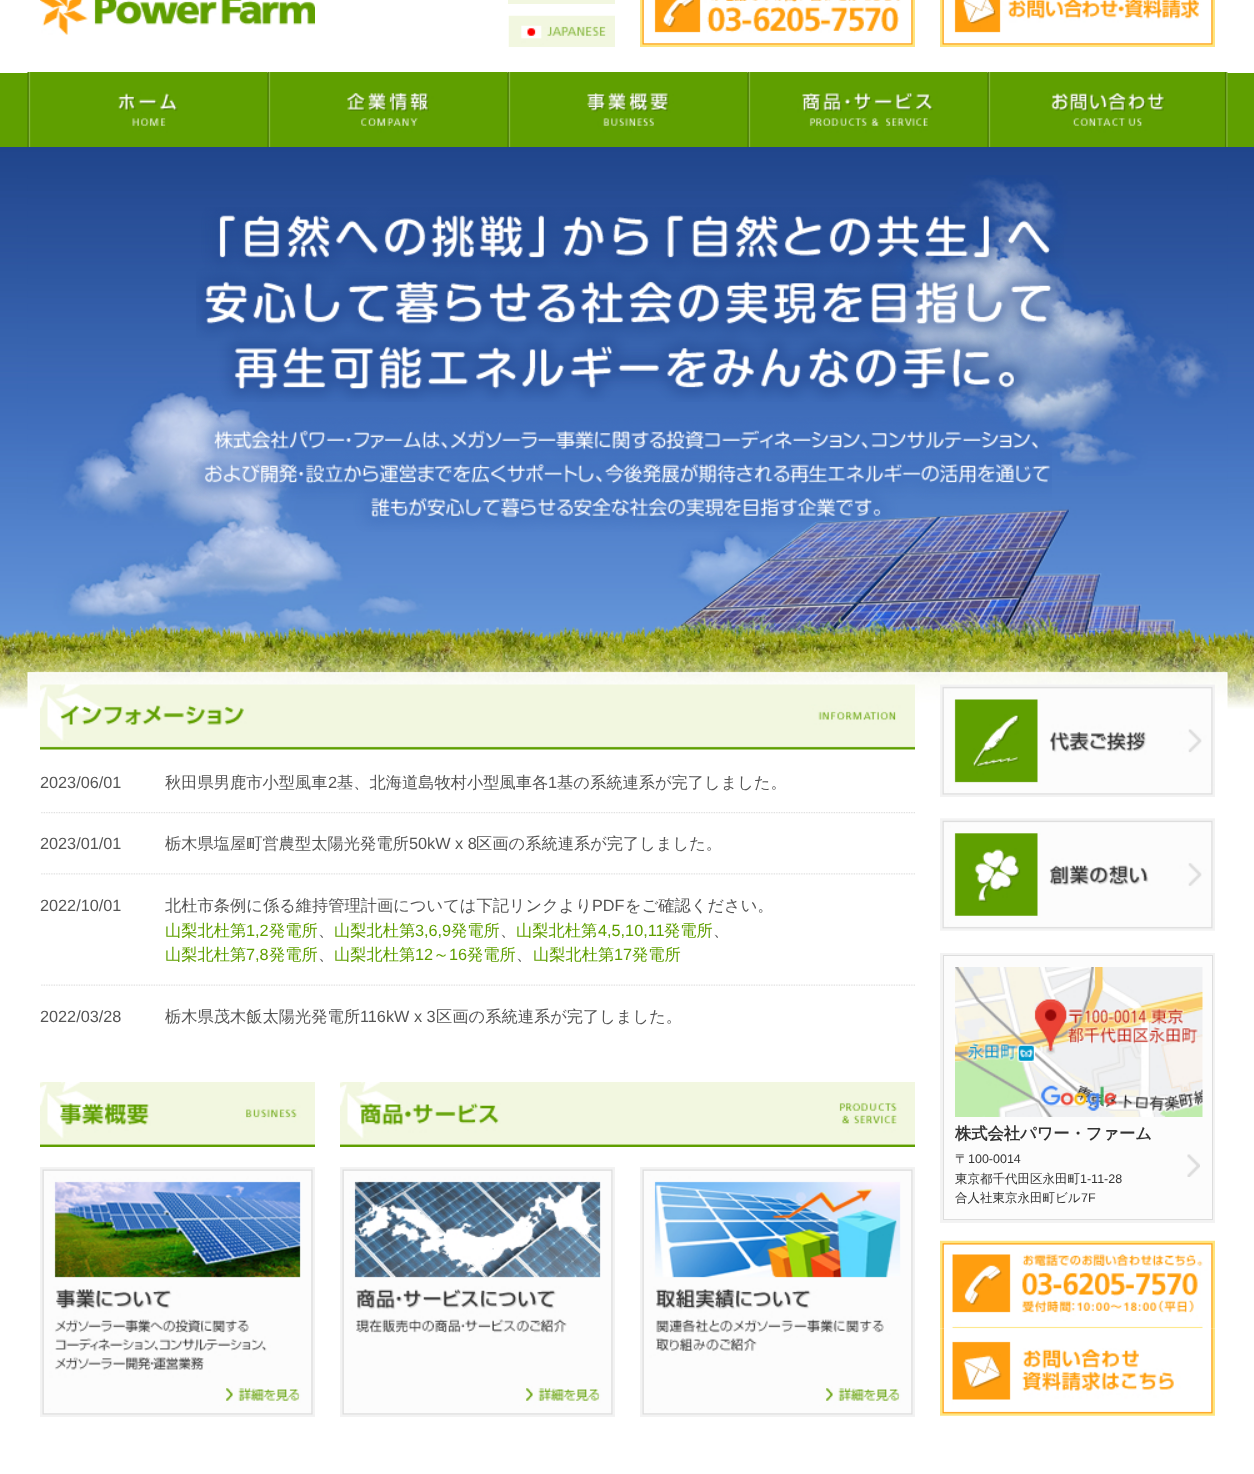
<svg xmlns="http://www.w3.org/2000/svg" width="1254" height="1474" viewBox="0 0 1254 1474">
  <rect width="100%" height="100%" fill="rgb(255,255,255)"/>
  <image x="40" y="0" width="275" height="35" href="pic1.png"/>
  <rect x="508" y="0" width="107" height="4" fill="rgb(242,247,224)"/>
  <image x="508" y="15" width="107" height="32" href="pic2.png"/>
  <image x="640" y="0" width="275" height="47" href="pic3.png"/>
  <image x="940" y="0" width="275" height="47" href="pic4.png"/>
  <rect x="0" y="73" width="1254" height="74" fill="rgb(95,159,0)"/>
  <image x="27" y="72" width="241" height="75" href="pic5.png"/>
  <image x="267" y="72" width="241" height="75" href="pic6.png"/>
  <image x="507" y="72" width="241" height="75" href="pic7.png"/>
  <image x="747" y="72" width="241" height="75" href="pic8.png"/>
  <image x="987" y="72" width="241" height="75" href="pic9.png"/>
  <image x="0" y="147" width="1254" height="562" href="pic10.png"/>
  <image x="27" y="175" width="1201" height="534" href="pic11.png"/>
  <image x="196" y="207" width="868" height="195" href="pic12.png"/>
  <image x="190" y="417" width="862" height="115" href="pic13.png"/>
  <image x="40" y="684" width="875" height="66" href="pic14.png"/>
  <image x="41" y="812" width="874" height="2" href="pic15.png"/>
  <text x="40" y="788" font-family="Liberation Sans" font-size="16.25" fill="rgb(85,85,85)">2023/06/01</text>
  <text x="165" y="788" font-family="WenQuanYi Zen Hei" font-size="16.25" font-weight="500" fill="rgb(85,85,85)">秋田県男鹿市小型風車</text>
  <text x="328" y="788" font-family="Liberation Sans" font-size="16.25" fill="rgb(85,85,85)">2</text>
  <text x="337" y="788" font-family="WenQuanYi Zen Hei" font-size="16.25" font-weight="500" fill="rgb(85,85,85)">基、北海道島牧村小型風車各</text>
  <text x="548" y="788" font-family="Liberation Sans" font-size="16.25" fill="rgb(85,85,85)">1</text>
  <text x="557" y="788" font-family="WenQuanYi Zen Hei" font-size="16.25" font-weight="500" fill="rgb(85,85,85)">基の系統連系が完了しました。</text>
  <image x="41" y="873" width="874" height="2" href="pic16.png"/>
  <text x="40" y="849" font-family="Liberation Sans" font-size="16.25" fill="rgb(85,85,85)">2023/01/01</text>
  <text x="165" y="849" font-family="WenQuanYi Zen Hei" font-size="16.25" font-weight="500" fill="rgb(85,85,85)">栃木県塩屋町営農型太陽光発電所</text>
  <text x="409" y="849" font-family="Liberation Sans" font-size="16.25" fill="rgb(85,85,85)">50kW x 8</text>
  <text x="476" y="849" font-family="WenQuanYi Zen Hei" font-size="16.25" font-weight="500" fill="rgb(85,85,85)">区画の系統連系が完了しました。</text>
  <image x="41" y="984" width="874" height="2" href="pic17.png"/>
  <text x="40" y="911" font-family="Liberation Sans" font-size="16.25" fill="rgb(85,85,85)">2022/10/01</text>
  <text x="165" y="911" font-family="WenQuanYi Zen Hei" font-size="16.25" font-weight="500" fill="rgb(85,85,85)">北杜市条例に係る維持管理計画については下記リンクより</text>
  <text x="592" y="911" font-family="Liberation Sans" font-size="16.25" fill="rgb(85,85,85)">PDF</text>
  <text x="625" y="911" font-family="WenQuanYi Zen Hei" font-size="16.25" font-weight="500" fill="rgb(85,85,85)">をご確認ください。</text>
  <text x="165" y="936" font-family="WenQuanYi Zen Hei" font-size="16.25" font-weight="500" fill="rgb(95,159,0)">山梨北杜第</text>
  <text x="246" y="936" font-family="Liberation Sans" font-size="16.25" fill="rgb(95,159,0)">1,2</text>
  <text x="269" y="936" font-family="WenQuanYi Zen Hei" font-size="16.25" font-weight="500" fill="rgb(95,159,0)">発電所</text>
  <text x="318" y="936" font-family="WenQuanYi Zen Hei" font-size="16.25" font-weight="500" fill="rgb(85,85,85)">、</text>
  <text x="334" y="936" font-family="WenQuanYi Zen Hei" font-size="16.25" font-weight="500" fill="rgb(95,159,0)">山梨北杜第</text>
  <text x="415" y="936" font-family="Liberation Sans" font-size="16.25" fill="rgb(95,159,0)">3,6,9</text>
  <text x="451" y="936" font-family="WenQuanYi Zen Hei" font-size="16.25" font-weight="500" fill="rgb(95,159,0)">発電所</text>
  <text x="500" y="936" font-family="WenQuanYi Zen Hei" font-size="16.25" font-weight="500" fill="rgb(85,85,85)">、</text>
  <text x="516" y="936" font-family="WenQuanYi Zen Hei" font-size="16.25" font-weight="500" fill="rgb(95,159,0)">山梨北杜第</text>
  <text x="598" y="936" font-family="Liberation Sans" font-size="16.25" fill="rgb(95,159,0)">4,5,10,11</text>
  <text x="664" y="936" font-family="WenQuanYi Zen Hei" font-size="16.25" font-weight="500" fill="rgb(95,159,0)">発電所</text>
  <text x="713" y="936" font-family="WenQuanYi Zen Hei" font-size="16.25" font-weight="500" fill="rgb(85,85,85)">、</text>
  <text x="165" y="960" font-family="WenQuanYi Zen Hei" font-size="16.25" font-weight="500" fill="rgb(95,159,0)">山梨北杜第</text>
  <text x="246" y="960" font-family="Liberation Sans" font-size="16.25" fill="rgb(95,159,0)">7,8</text>
  <g font-family="WenQuanYi Zen Hei" font-size="16.25" font-weight="500" fill="rgb(95,159,0)">
    <text x="269" y="960">発電所</text>
    <text x="334" y="960">山梨北杜第</text>
  </g>
  <text x="415" y="960" font-family="Liberation Sans" font-size="16.25" fill="rgb(95,159,0)">12</text>
  <text x="433" y="960" font-family="WenQuanYi Zen Hei" font-size="16.25" font-weight="500" fill="rgb(95,159,0)">～</text>
  <text x="449" y="960" font-family="Liberation Sans" font-size="16.25" fill="rgb(95,159,0)">16</text>
  <g font-family="WenQuanYi Zen Hei" font-size="16.25" font-weight="500" fill="rgb(95,159,0)">
    <text x="467" y="960">発電所</text>
    <text x="533" y="960">山梨北杜第</text>
  </g>
  <text x="614" y="960" font-family="Liberation Sans" font-size="16.25" fill="rgb(95,159,0)">17</text>
  <text x="632" y="960" font-family="WenQuanYi Zen Hei" font-size="16.25" font-weight="500" fill="rgb(95,159,0)">発電所</text>
  <g font-family="WenQuanYi Zen Hei" font-size="16.25" font-weight="500" fill="rgb(85,85,85)">
    <text x="318" y="960">、</text>
    <text x="516" y="960">、</text>
  </g>
  <text x="40" y="1022" font-family="Liberation Sans" font-size="16.25" fill="rgb(85,85,85)">2022/03/28</text>
  <text x="165" y="1022" font-family="WenQuanYi Zen Hei" font-size="16.25" font-weight="500" fill="rgb(85,85,85)">栃木県茂木飯太陽光発電所</text>
  <text x="360" y="1022" font-family="Liberation Sans" font-size="16.25" fill="rgb(85,85,85)">116kW x 3</text>
  <text x="436" y="1022" font-family="WenQuanYi Zen Hei" font-size="16.25" font-weight="500" fill="rgb(85,85,85)">区画の系統連系が完了しました。</text>
  <image x="40" y="1082" width="275" height="65" href="pic18.png"/>
  <image x="40" y="1167" width="275" height="250" href="pic19.png"/>
  <image x="340" y="1082" width="575" height="65" href="pic20.png"/>
  <image x="340" y="1167" width="275" height="250" href="pic21.png"/>
  <image x="640" y="1167" width="275" height="250" href="pic22.png"/>
  <image x="940" y="684" width="275" height="113" href="pic23.png"/>
  <image x="940" y="818" width="275" height="113" href="pic24.png"/>
  <rect x="940" y="953" width="275" height="270" fill="rgb(243,243,243)"/>
  <rect x="943.5" y="955.5" width="269" height="264" fill="rgb(252,252,252)" stroke="rgb(221,221,221)"/>
  <image x="955" y="967" width="248" height="150" href="pic25.png"/>
  <image x="1187" y="1154" width="13" height="23" href="pic26.png"/>
  <text x="955" y="1139" font-family="WenQuanYi Zen Hei" font-size="16.25" font-weight="bold" fill="rgb(51,51,51)">株式会社パワー・ファーム</text>
  <text x="955" y="1163" font-family="WenQuanYi Zen Hei" font-size="12.5" font-weight="500" fill="rgb(51,51,51)">〒</text>
  <text x="968" y="1163" font-family="Liberation Sans" font-size="12.5" fill="rgb(51,51,51)">100-0014</text>
  <text x="955" y="1183" font-family="WenQuanYi Zen Hei" font-size="12.5" font-weight="500" fill="rgb(51,51,51)">東京都千代田区永田町</text>
  <text x="1080" y="1183" font-family="Liberation Sans" font-size="12.5" fill="rgb(51,51,51)">1-11-28</text>
  <text x="955" y="1202" font-family="WenQuanYi Zen Hei" font-size="12.5" font-weight="500" fill="rgb(51,51,51)">合人社東京永田町ビル</text>
  <text x="1081" y="1202" font-family="Liberation Sans" font-size="12.5" fill="rgb(51,51,51)">7F</text>
  <image x="940" y="1240" width="275" height="89" href="pic27.png"/>
  <image x="940" y="1328" width="275" height="88" href="pic28.png"/>
</svg>
